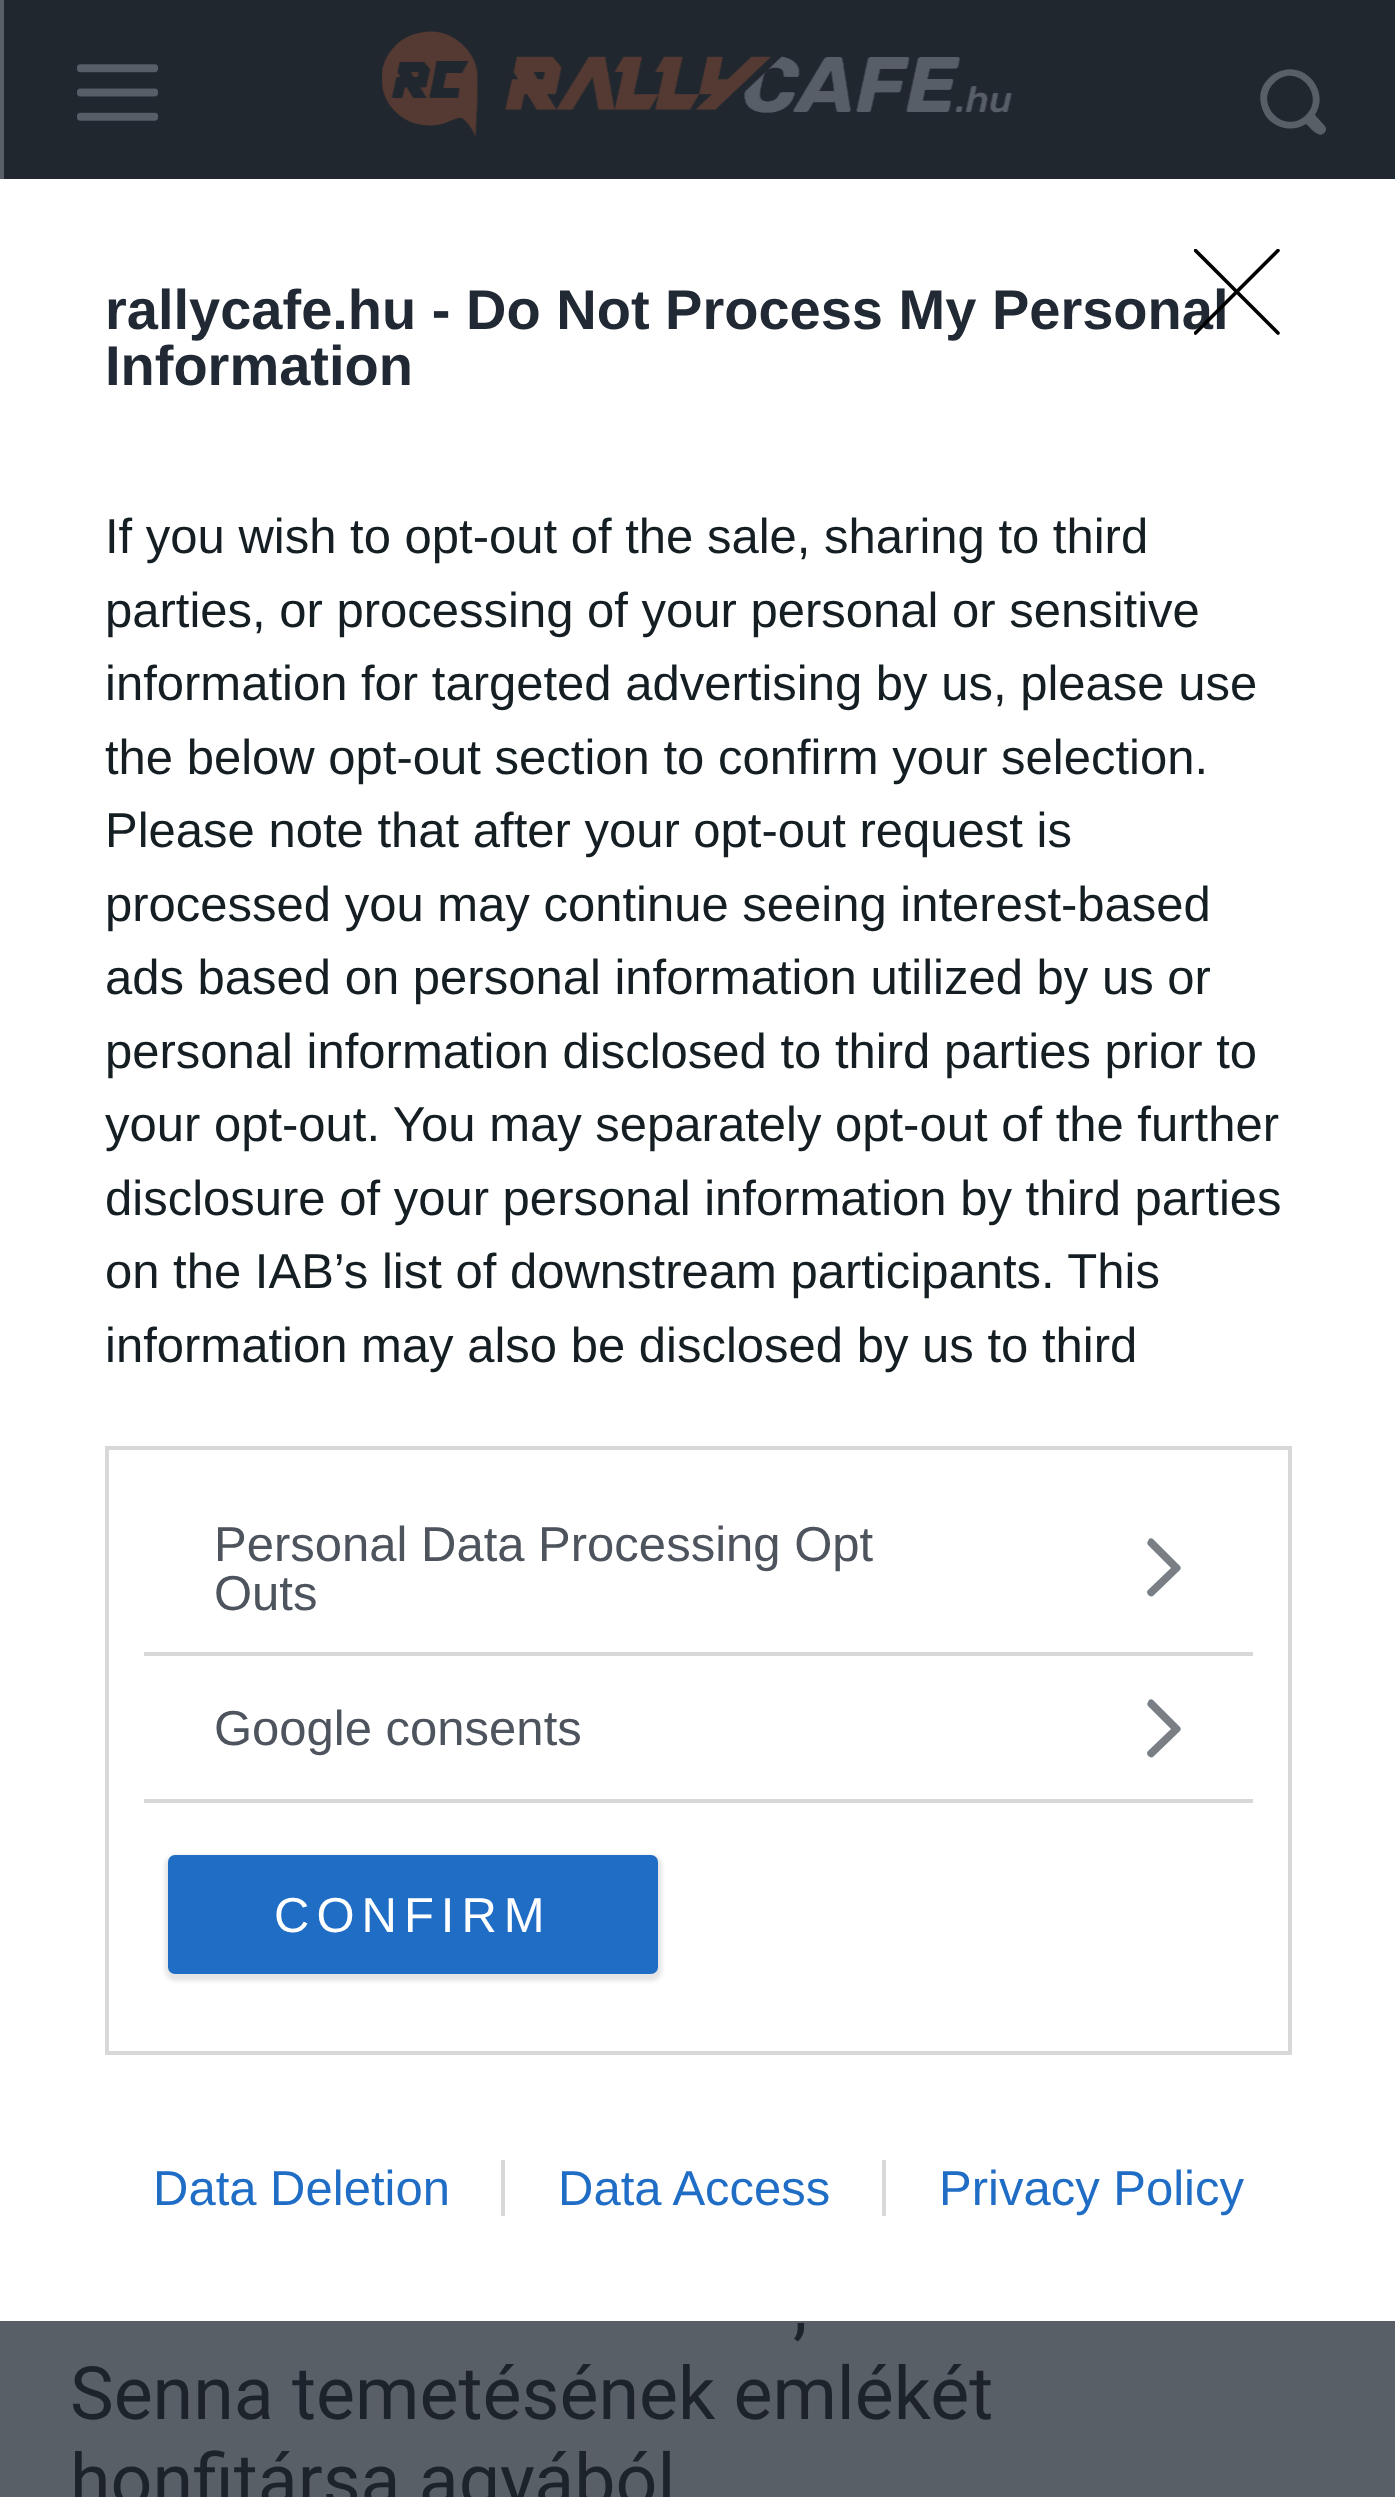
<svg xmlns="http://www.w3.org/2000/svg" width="1395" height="2497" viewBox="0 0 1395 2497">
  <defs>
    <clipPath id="clip1"><rect x="1194" y="249" width="87" height="87"/></clipPath>
  </defs>
  <rect width="100%" height="100%" fill="rgb(89,95,103)"/>
  <rect x="0" y="179" width="1395" height="2142" fill="rgb(255,255,255)"/>
  <text x="105" y="329" font-family="Liberation Sans" font-size="56" font-weight="bold" fill="rgb(33,41,52)">rallycafe.hu - Do Not Process My Personal</text>
  <g clip-path="url(#clip1)">
    <path d="M1195.5 250.5L1278 333M1278 250.5L1195.5 333" fill="none" stroke="rgb(0,0,0)" stroke-width="3.6" stroke-linecap="round" stroke-linejoin="round"/>
  </g>
  <text x="105" y="385" font-family="Liberation Sans" font-size="56" font-weight="bold" fill="rgb(33,41,52)">Information</text>
  <g font-family="Liberation Sans" font-size="49" fill="rgb(20,30,35)">
    <text>
      <tspan x="105" y="553">If you wish to opt-out of the sale, sharing to third</tspan>
      <tspan x="105" y="627">parties, or processing of your personal or sensitive</tspan>
      <tspan x="105" y="700">information for targeted advertising by us, please use</tspan>
      <tspan x="105" y="774">the below opt-out section to confirm your selection.</tspan>
      <tspan x="105" y="847">Please note that after your opt-out request is</tspan>
      <tspan x="105" y="921">processed you may continue seeing interest-based</tspan>
      <tspan x="105" y="994">ads based on personal information utilized by us or</tspan>
      <tspan x="105" y="1068">personal information disclosed to third parties prior to</tspan>
      <tspan x="105" y="1141">your opt-out. You may separately opt-out of the further</tspan>
      <tspan x="105" y="1215">disclosure of your personal information by third parties</tspan>
      <tspan x="105" y="1288">on the IAB’s list of downstream participants. This</tspan>
      <tspan x="105" y="1362">information may also be disclosed by us to third</tspan>
    </text>
  </g>
  <rect x="107" y="1448" width="1183" height="605" fill="none" stroke="rgb(216,216,216)" stroke-width="4"/>
  <rect x="144" y="1652" width="1109" height="4" fill="rgb(216,216,216)"/>
  <g font-family="Liberation Sans" font-size="49" fill="rgb(77,84,93)">
    <text>
      <tspan x="214" y="1561">Personal Data Processing Opt</tspan>
      <tspan x="214" y="1610">Outs</tspan>
    </text>
  </g>
  <path d="M1180 1570L1153 1596C1150 1598 1145 1593 1148 1590L1171 1568L1148 1545C1147 1544 1147 1542 1148 1541L1149 1539C1150 1538 1152 1538 1153 1539L1180 1566C1181 1567 1181 1569 1180 1570Z" fill="rgb(122,127,133)"/>
  <rect x="144" y="1799" width="1109" height="4" fill="rgb(216,216,216)"/>
  <text x="214" y="1745" font-family="Liberation Sans" font-size="49" fill="rgb(77,84,93)">Google consents</text>
  <path d="M1180 1731L1153 1757C1150 1759 1145 1754 1148 1751L1171 1729L1148 1706C1147 1705 1147 1703 1148 1702L1149 1700C1150 1699 1152 1699 1153 1700L1180 1727C1181 1728 1181 1730 1180 1731Z" fill="rgb(122,127,133)"/>
  <rect x="165" y="1855" width="497" height="126" rx="11" fill="rgba(0,0,0,0.1)" filter="blur(2px)"/>
  <rect x="168" y="1855" width="490" height="119" rx="7" fill="rgb(32,109,197)"/>
  <text x="274" y="1932" font-family="Liberation Sans" font-size="49" letter-spacing="7" fill="rgb(255,255,255)">CONFIRM</text>
  <g font-family="Liberation Sans" font-size="49" fill="rgb(32,109,197)">
    <text x="153" y="2205">Data Deletion</text>
    <text x="558" y="2205">Data Access</text>
  </g>
  <rect x="501" y="2160" width="4" height="56" fill="rgb(216,216,216)"/>
  <text x="939" y="2205" font-family="Liberation Sans" font-size="49" fill="rgb(32,109,197)">Privacy Policy</text>
  <rect x="882" y="2160" width="4" height="56" fill="rgb(216,216,216)"/>
  <rect x="4" y="0" width="1391" height="179" fill="rgb(33,39,47)"/>
  <image x="77" y="64" width="82" height="57" href="pic1.png"/>
  <image x="382" y="31" width="630" height="106" href="pic2.png"/>
  <path d="M1324 125L1315 115C1331 90 1303 58 1276 73C1270 76 1265 81 1262 88C1259 96 1260 105 1264 113C1272 128 1292 133 1306 124C1309 126 1314 133 1318 134C1324 137 1329 129 1324 125ZM1306 115C1285 136 1253 104 1274 83C1295 61 1327 94 1306 115Z" fill="rgb(89,95,103)"/>
  <g font-family="Roboto" font-size="73.5" fill="rgb(29,35,43)">
    <text x="793" y="2331">,</text>
    <text>
      <tspan x="70" y="2419">Senna temetésének emlékét</tspan>
      <tspan x="70" y="2506">honfitársa agyából</tspan>
    </text>
  </g>
</svg>
